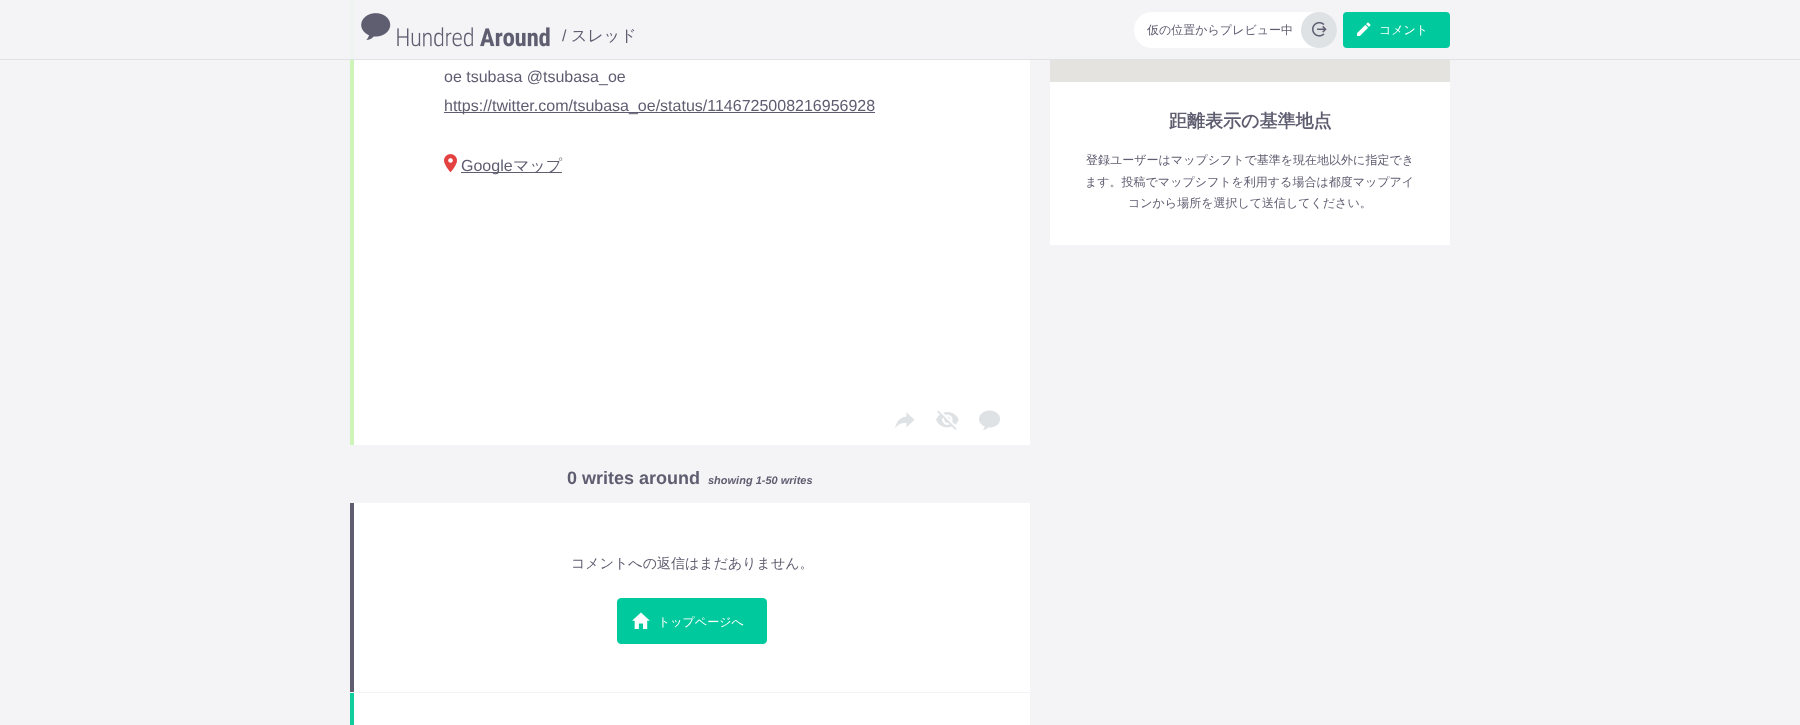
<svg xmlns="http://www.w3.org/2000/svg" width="1800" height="725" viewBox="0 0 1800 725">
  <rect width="100%" height="100%" fill="rgb(244,244,246)"/>
  <rect x="350" y="0" width="4" height="60" fill="rgb(240,244,240)"/>
  <rect x="0" y="59" width="1800" height="1" fill="rgb(223,226,229)"/>
  <image x="361" y="13" width="189" height="34" href="pic1.png"/>
  <text x="562" y="41" font-family="Liberation Sans" font-size="16" fill="rgb(95,93,112)">/</text>
  <text x="571" y="41" font-family="WenQuanYi Zen Hei" font-size="16" font-weight="500" fill="rgb(95,93,112)">スレッド</text>
  <rect x="1134" y="12" width="203" height="36" rx="18" fill="rgb(255,255,255)"/>
  <text x="1147" y="34" font-family="WenQuanYi Zen Hei" font-size="12" font-weight="500" fill="rgb(95,93,112)">仮の位置からプレビュー中</text>
  <circle cx="1319" cy="30" r="18" fill="rgb(223,226,229)"/>
  <image x="1312" y="21" width="15" height="16" href="pic2.png"/>
  <rect x="1343" y="12" width="107" height="36" rx="4" fill="rgb(0,202,157)"/>
  <image x="1357" y="22" width="14" height="14" href="pic3.png"/>
  <text x="1379" y="34" font-family="WenQuanYi Zen Hei" font-size="12" font-weight="500" fill="rgb(255,255,255)">コメント</text>
  <rect x="354" y="60" width="676" height="385" fill="rgb(255,255,255)"/>
  <rect x="350" y="60" width="4" height="385" fill="rgb(205,245,183)"/>
  <text x="444" y="82" font-family="Liberation Sans" font-size="16" fill="rgb(95,93,112)">oe tsubasa @tsubasa_oe</text>
  <rect x="444" y="112" width="431" height="1" fill="rgb(95,93,112)"/>
  <text x="444" y="111" font-family="Liberation Sans" font-size="16" fill="rgb(95,93,112)">https://twitter.com/tsubasa_oe/status/1146725008216956928</text>
  <image x="444" y="154" width="13" height="19" href="pic4.png"/>
  <rect x="461" y="172" width="101" height="1" fill="rgb(95,93,112)"/>
  <text x="461" y="171" font-family="Liberation Sans" font-size="16" fill="rgb(95,93,112)">Google</text>
  <text x="513" y="171" font-family="WenQuanYi Zen Hei" font-size="16" font-weight="500" fill="rgb(95,93,112)">マップ</text>
  <image x="895" y="412" width="20" height="16" href="pic5.png"/>
  <image x="936" y="410" width="23" height="20" href="pic6.png"/>
  <image x="979" y="410" width="21" height="20" href="pic7.png"/>
  <text x="567" y="484" font-family="Liberation Sans" font-size="18" font-weight="bold" fill="rgb(95,93,112)">0 writes around</text>
  <text x="708" y="484" font-family="Liberation Sans" font-size="11" font-weight="bold" font-style="italic" fill="rgb(95,93,112)">showing 1-50 writes</text>
  <rect x="354" y="503" width="676" height="189" fill="rgb(255,255,255)"/>
  <rect x="350" y="503" width="4" height="189" fill="rgb(95,93,112)"/>
  <text x="571" y="568" font-family="WenQuanYi Zen Hei" font-size="14" font-weight="500" fill="rgb(95,93,112)">コメントへの返信はまだありません。</text>
  <rect x="617.5" y="598.5" width="149" height="45" rx="3.5" fill="rgb(0,202,157)" stroke="rgb(0,202,157)"/>
  <image x="632" y="612" width="18" height="17" href="pic8.png"/>
  <text x="658" y="626" font-family="WenQuanYi Zen Hei" font-size="12" font-weight="500" fill="rgb(255,255,255)">トップページへ</text>
  <rect x="354" y="693" width="676" height="32" fill="rgb(255,255,255)"/>
  <rect x="350" y="693" width="4" height="32" fill="rgb(16,205,158)"/>
  <rect x="1050" y="60" width="400" height="22" fill="rgb(229,227,223)"/>
  <rect x="1050" y="82" width="400" height="163" fill="rgb(255,255,255)"/>
  <text x="1169" y="127" font-family="WenQuanYi Zen Hei" font-size="18" font-weight="bold" fill="rgb(95,93,112)">距離表示の基準地点</text>
  <g font-family="WenQuanYi Zen Hei" font-size="12" font-weight="500" fill="rgb(95,93,112)">
    <text x="1086" y="164">登録ユーザーはマップシフトで基準を現在地以外に指定でき</text>
    <text x="1085" y="186">ます。投稿でマップシフトを利用する場合は都度マップアイ</text>
    <text x="1128" y="207">コンから場所を選択して送信してください。</text>
  </g>
</svg>
